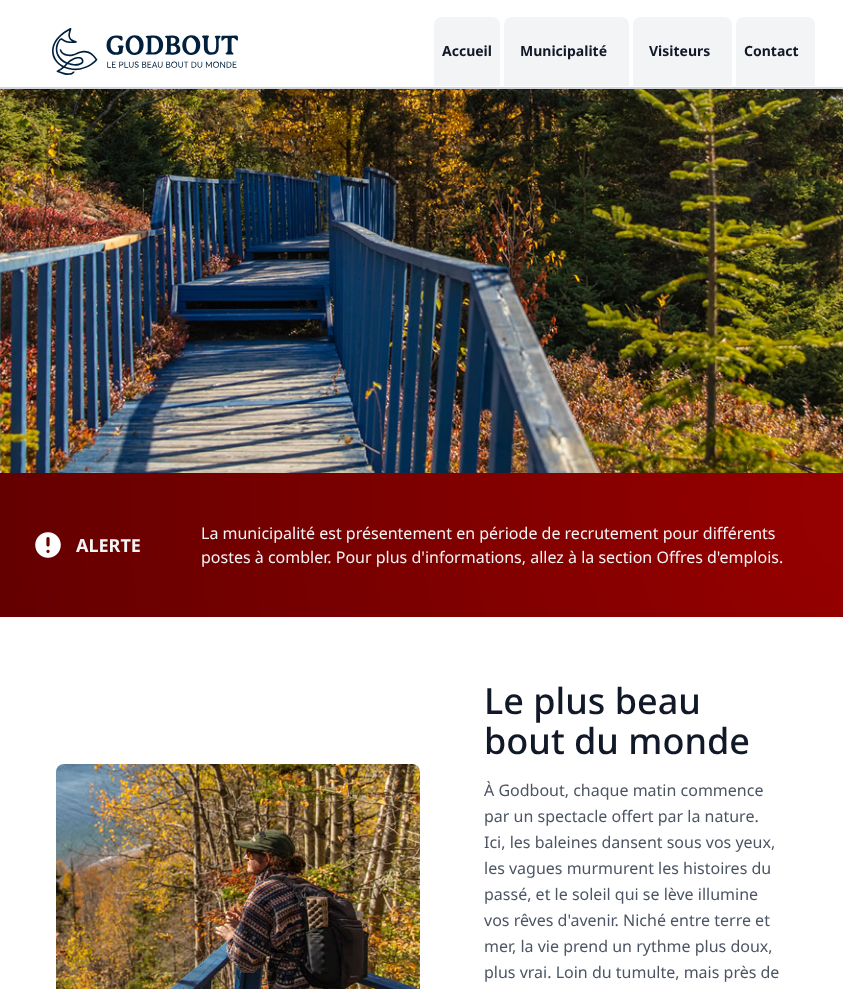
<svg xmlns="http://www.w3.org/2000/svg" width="843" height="989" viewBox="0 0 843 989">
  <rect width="100%" height="100%" fill="rgb(255,255,255)"/>
  <rect x="0" y="87" width="843" height="2" fill="rgb(209,213,219)"/>
  <image x="52" y="28" width="186" height="47" href="pic1.png"/>
  <path d="M442 17H492C496.5 17 500 20.5 500 25V86H434V25C434 20.5 437.5 17 442 17Z" fill="rgb(243,244,246)"/>
  <text x="442" y="56" font-family="Noto Sans" font-size="14" font-weight="bold" fill="rgb(17,24,39)">Accueil</text>
  <path d="M512 17H621C625.5 17 629 20.5 629 25V86H504V25C504 20.5 507.5 17 512 17Z" fill="rgb(243,244,246)"/>
  <text x="520" y="56" font-family="Noto Sans" font-size="14" font-weight="bold" fill="rgb(17,24,39)">Municipalité</text>
  <path d="M641 17H724C728.5 17 732 20.5 732 25V86H633V25C633 20.5 636.5 17 641 17Z" fill="rgb(243,244,246)"/>
  <text x="649" y="56" font-family="Noto Sans" font-size="14" font-weight="bold" fill="rgb(17,24,39)">Visiteurs</text>
  <path d="M744 17H807C811.5 17 815 20.5 815 25V86H736V25C736 20.5 739.5 17 744 17Z" fill="rgb(243,244,246)"/>
  <text x="744" y="56" font-family="Noto Sans" font-size="14" font-weight="bold" fill="rgb(17,24,39)">Contact</text>
  <image x="0" y="89" width="843" height="384" href="pic2.png"/>
  <image x="0" y="473" width="843" height="144" href="pic3.png"/>
  <image x="35" y="532" width="26" height="26" href="pic4.png"/>
  <text x="76" y="552" font-family="Noto Sans" font-size="18" font-weight="bold" fill="rgb(243,244,246)">ALERTE</text>
  <g font-family="Noto Sans" font-size="16" fill="rgb(243,244,246)">
    <text>
      <tspan x="201" y="539">La municipalité est présentement en période de recrutement pour différents</tspan>
      <tspan x="201" y="563">postes à combler. Pour plus d'informations, allez à la section Offres d'emplois.</tspan>
    </text>
  </g>
  <image x="56" y="764" width="364" height="225" href="pic5.png"/>
  <g font-family="Noto Sans" font-size="36" font-weight="500" fill="rgb(17,24,39)">
    <text>
      <tspan x="484" y="714">Le plus beau</tspan>
      <tspan x="484" y="754">bout du monde</tspan>
    </text>
  </g>
  <g font-family="Noto Sans" font-size="16" fill="rgb(75,85,99)">
    <text>
      <tspan x="484" y="796">À Godbout, chaque matin commence</tspan>
      <tspan x="484" y="822">par un spectacle offert par la nature.</tspan>
      <tspan x="484" y="848">Ici, les baleines dansent sous vos yeux,</tspan>
      <tspan x="484" y="874">les vagues murmurent les histoires du</tspan>
      <tspan x="484" y="900">passé, et le soleil qui se lève illumine</tspan>
      <tspan x="484" y="926">vos rêves d'avenir. Niché entre terre et</tspan>
      <tspan x="484" y="952">mer, la vie prend un rythme plus doux,</tspan>
      <tspan x="484" y="978">plus vrai. Loin du tumulte, mais près de</tspan>
    </text>
  </g>
</svg>
